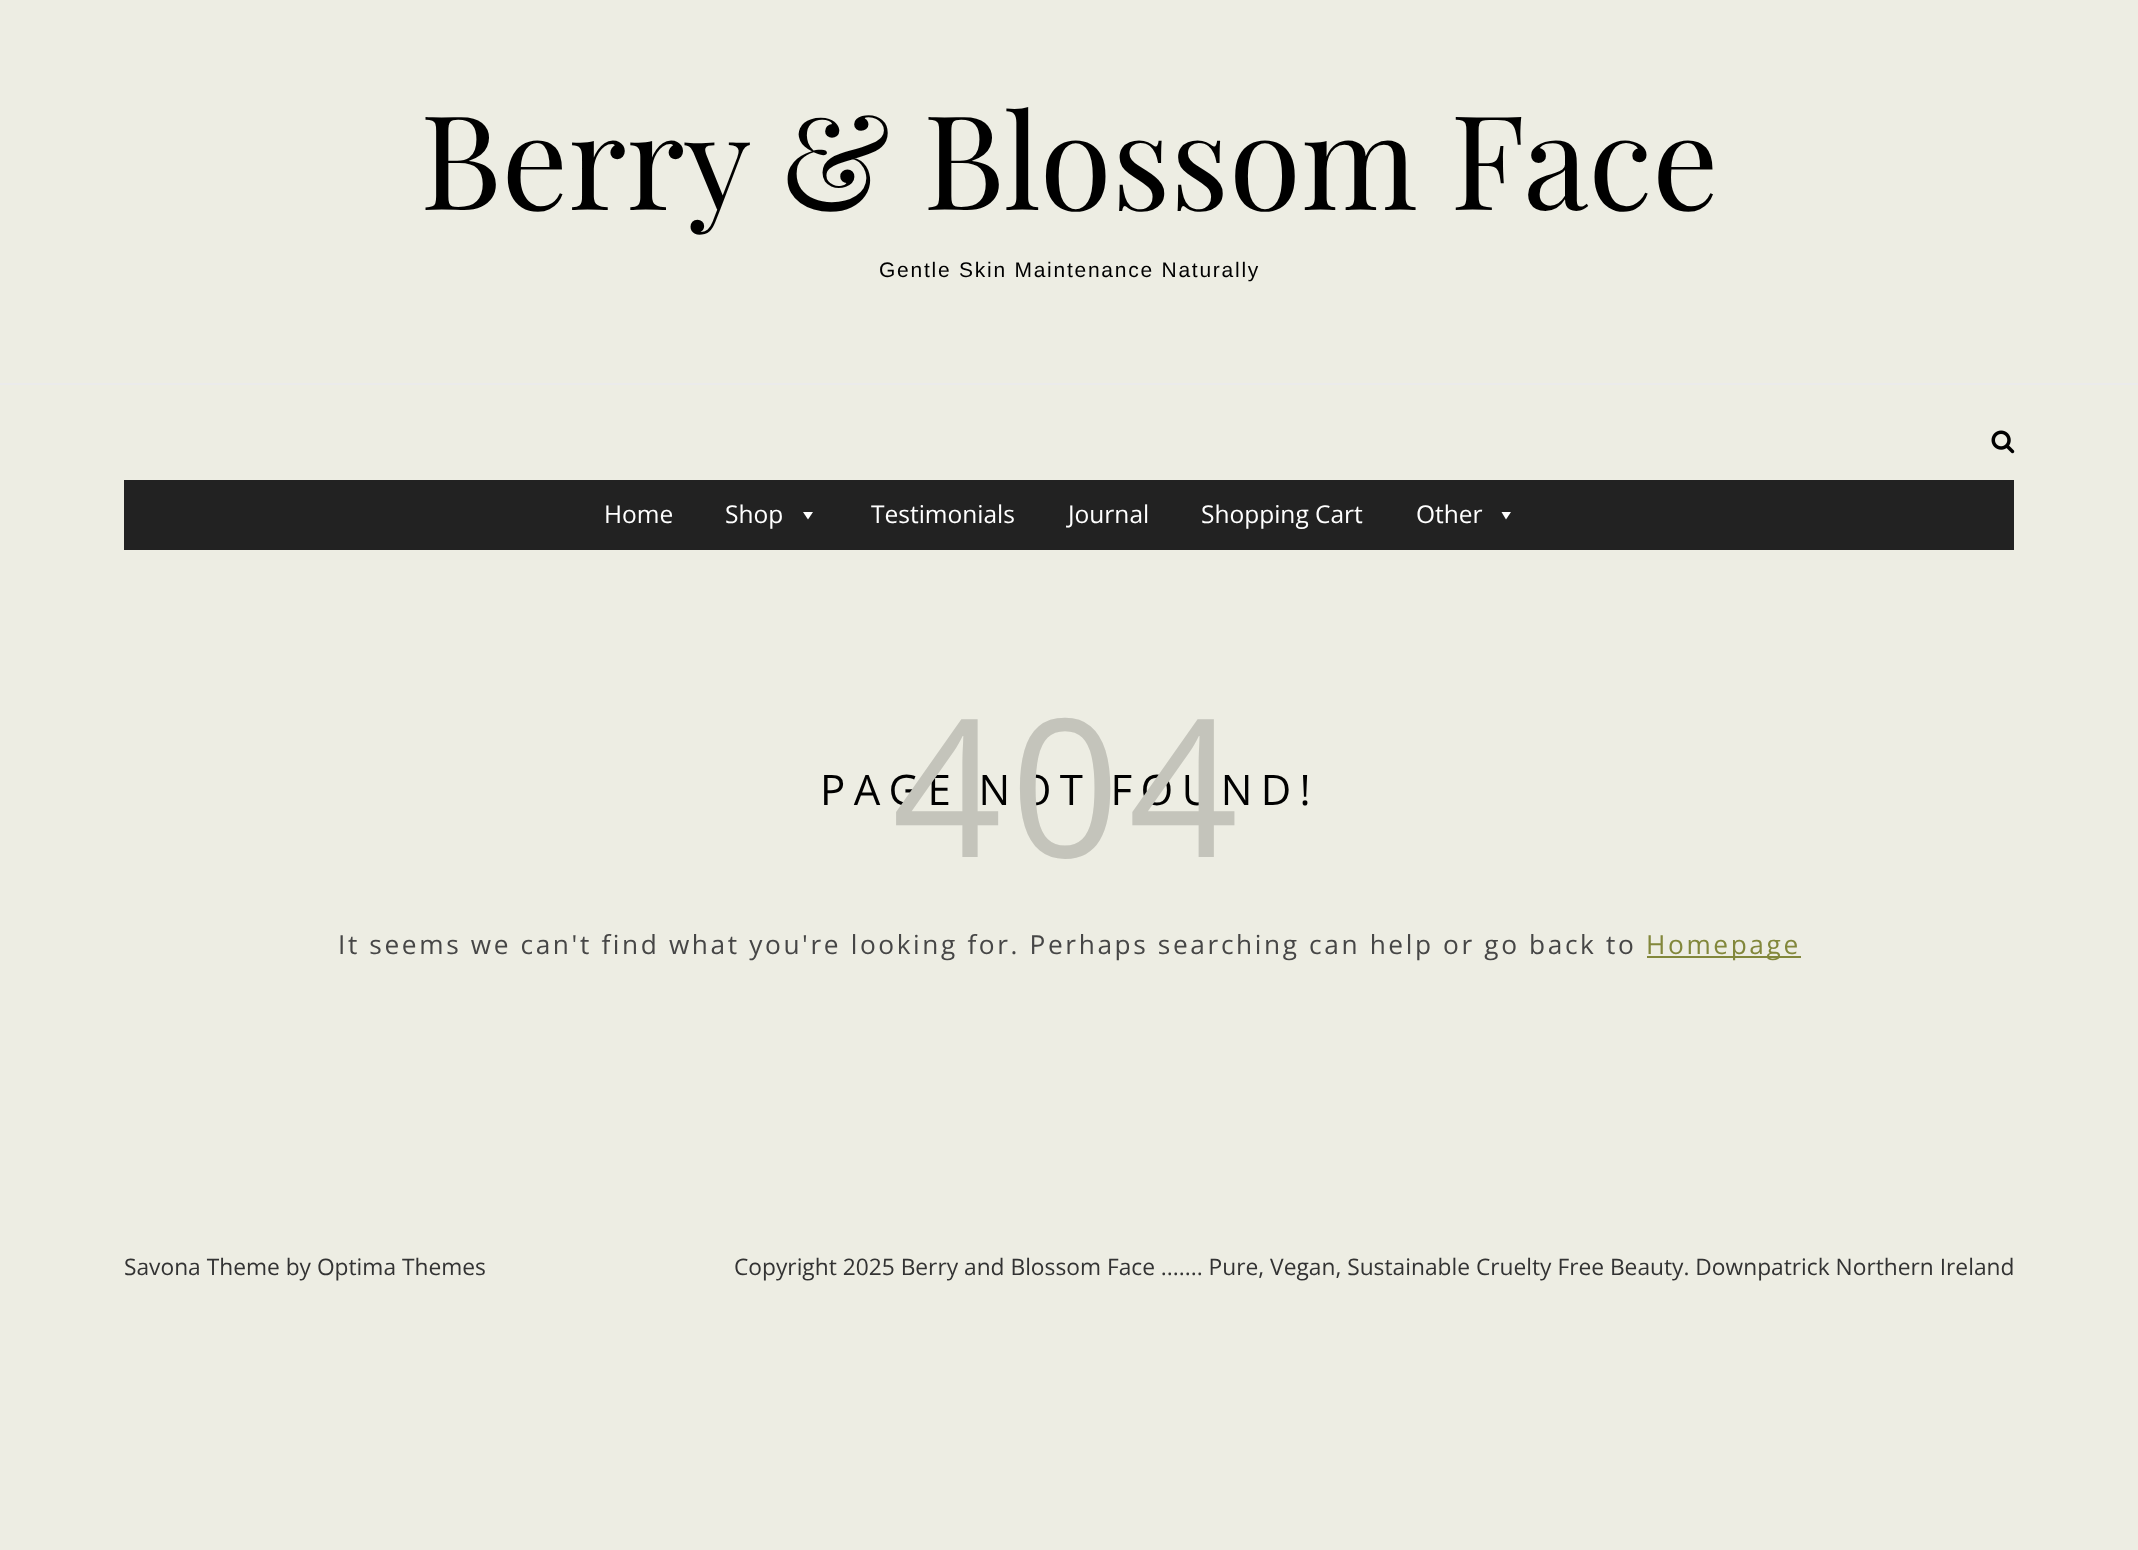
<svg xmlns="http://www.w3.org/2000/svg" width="2138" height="1550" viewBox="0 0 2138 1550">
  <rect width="100%" height="100%" fill="rgb(237,237,227)"/>
  <rect x="0" y="383" width="2138" height="2" fill="rgb(235,235,235)"/>
  <text x="420" y="210" font-family="Playfair Display" font-size="131.25" fill="rgb(0,0,0)">Berry &amp; Blossom Face</text>
  <text x="879" y="277" font-family="Liberation Sans" font-size="21" letter-spacing="1.75" fill="rgb(0,0,0)">Gentle Skin Maintenance Naturally</text>
  <image x="1991" y="430" width="24" height="24" href="pic1.png"/>
  <rect x="124" y="480" width="1890" height="70" fill="rgb(34,34,34)"/>
  <g font-family="Open Sans" font-size="24.5" fill="rgb(255,255,255)">
    <text x="604" y="523">Home</text>
    <text x="725" y="523">Shop</text>
  </g>
  <path d="M813 512L808 519.5L803 512Z" fill="rgb(255,255,255)"/>
  <g font-family="Open Sans" font-size="24.5" fill="rgb(255,255,255)">
    <text x="871" y="523">Testimonials</text>
    <text x="1068" y="523">Journal</text>
    <text x="1201" y="523">Shopping Cart</text>
    <text x="1416" y="523">Other</text>
  </g>
  <path d="M1511 512L1506 519.5L1501.5 512Z" fill="rgb(255,255,255)"/>
  <text x="820" y="805" font-family="Open Sans" font-size="42" letter-spacing="8.4" fill="rgb(0,0,0)">PAGE NOT FOUND!</text>
  <text x="892" y="857" font-family="Open Sans" font-size="192" letter-spacing="8.4" fill="rgb(196,196,187)">404</text>
  <text x="338" y="954" font-family="Open Sans" font-size="26.25" letter-spacing="2.62" fill="rgb(70,70,70)">It seems we can't find what you're looking for. Perhaps searching can help or go back to</text>
  <rect x="1647" y="956" width="154" height="2" fill="rgb(130,135,59)"/>
  <text x="1646" y="954" font-family="Open Sans" font-size="26.25" letter-spacing="2.62" fill="rgb(130,135,59)">Homepage</text>
  <g font-family="Open Sans" font-size="22.75" fill="rgb(51,51,51)">
    <text x="124" y="1275">Savona Theme by Optima Themes</text>
    <text x="734" y="1275">Copyright 2025 Berry and Blossom Face ....... Pure, Vegan, Sustainable Cruelty Free Beauty. Downpatrick Northern Ireland</text>
  </g>
</svg>
